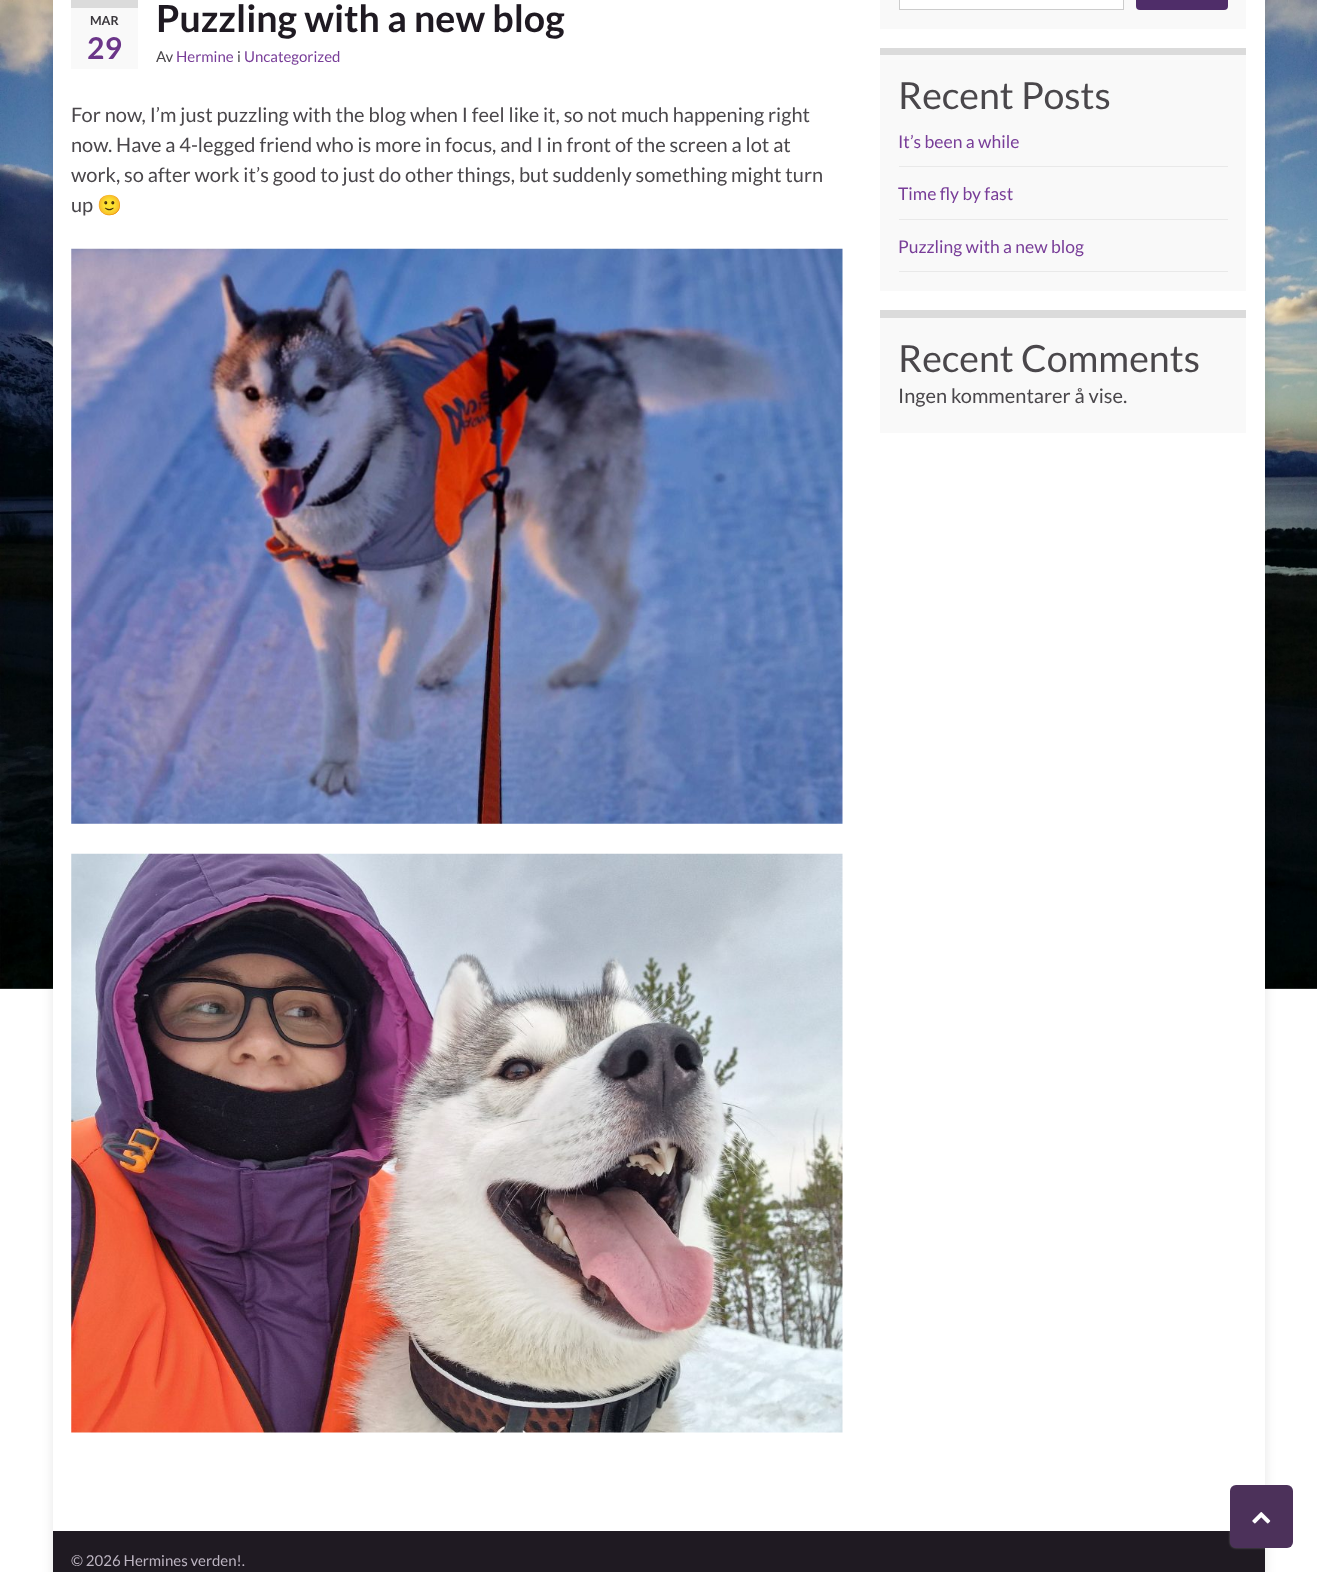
<svg xmlns="http://www.w3.org/2000/svg" width="1317" height="1572" viewBox="0 0 1317 1572">
  <rect width="100%" height="100%" fill="rgb(255,255,255)"/>
  <image x="0" y="0" width="1317" height="989" href="pic1.png"/>
  <rect x="53" y="-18" width="1212" height="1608" fill="rgba(0,0,0,0.1)" filter="blur(6px)"/>
  <rect x="53" y="0" width="1212" height="1531" fill="rgb(255,255,255)"/>
  <rect x="71" y="8" width="67" height="61" fill="rgb(249,249,249)"/>
  <rect x="71" y="0" width="67" height="8" fill="rgb(219,219,219)"/>
  <text x="90" y="25" font-family="Lato" font-size="12.5" font-weight="bold" fill="rgb(59,56,61)">MAR</text>
  <text x="87" y="59" font-family="Lato" font-size="30" font-weight="bold" fill="rgb(107,53,137)">29</text>
  <text x="156" y="32" font-family="Lato" font-size="37.5" font-weight="bold" fill="rgb(31,26,34)">Puzzling with a new blog</text>
  <text x="156" y="62" font-family="Lato" font-size="15" fill="rgb(74,71,75)">Av</text>
  <text x="176" y="62" font-family="Lato" font-size="15" fill="rgb(120,61,152)">Hermine</text>
  <text x="237" y="62" font-family="Lato" font-size="15" fill="rgb(74,71,75)">i</text>
  <text x="244" y="62" font-family="Lato" font-size="15" fill="rgb(120,61,152)">Uncategorized</text>
  <g font-family="Lato" font-size="20" fill="rgb(74,71,75)">
    <text>
      <tspan x="71" y="122">For now, I’m just puzzling with the blog when I feel like it, so not much happening right</tspan>
      <tspan x="71" y="152">now. Have a 4-legged friend who is more in focus, and I in front of the screen a lot at</tspan>
      <tspan x="71" y="182">work, so after work it’s good to just do other things, but suddenly something might turn</tspan>
      <tspan x="71" y="212">up</tspan>
    </text>
  </g>
  <text x="97" y="212" font-family="Noto Color Emoji" font-size="20" fill="rgb(74,71,75)">🙂</text>
  <image x="71" y="248" width="772" height="576" href="pic2.png"/>
  <image x="71" y="853" width="772" height="580" href="pic3.png"/>
  <rect x="880" y="0" width="366" height="29" fill="rgb(249,249,249)"/>
  <rect x="899.5" y="-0.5" width="224" height="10" fill="rgb(255,255,255)" stroke="rgb(204,204,204)"/>
  <rect x="1136" y="-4" width="92" height="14" rx="4" fill="rgb(79,45,105)"/>
  <rect x="880" y="55" width="366" height="236" fill="rgb(249,249,249)"/>
  <rect x="880" y="48" width="366" height="7" fill="rgb(219,219,219)"/>
  <text x="898" y="109" font-family="Lato" font-size="37.5" fill="rgb(74,71,75)">Recent Posts</text>
  <rect x="899" y="166" width="329" height="1" fill="rgb(233,233,233)"/>
  <text x="898" y="148" font-family="Lato" font-size="17.5" fill="rgb(120,61,152)">It’s been a while</text>
  <rect x="899" y="219" width="329" height="1" fill="rgb(233,233,233)"/>
  <text x="898" y="200" font-family="Lato" font-size="17.5" fill="rgb(120,61,152)">Time fly by fast</text>
  <rect x="899" y="271" width="329" height="1" fill="rgb(233,233,233)"/>
  <text x="898" y="253" font-family="Lato" font-size="17.5" fill="rgb(120,61,152)">Puzzling with a new blog</text>
  <rect x="880" y="318" width="366" height="115" fill="rgb(249,249,249)"/>
  <rect x="880" y="310" width="366" height="8" fill="rgb(219,219,219)"/>
  <text x="898" y="372" font-family="Lato" font-size="37.5" fill="rgb(74,71,75)">Recent Comments</text>
  <text x="898" y="403" font-family="Lato" font-size="20" fill="rgb(74,71,75)">Ingen kommentarer å vise.</text>
  <rect x="53" y="1531" width="1212" height="41" fill="rgb(31,26,34)"/>
  <text x="71" y="1566" font-family="Lato" font-size="15" fill="rgb(188,180,193)">© 2026 Hermines verden!.</text>
  <rect x="1230" y="1485" width="63" height="63" rx="6" fill="rgba(255,255,255,0.3)" filter="blur(1px)"/>
  <rect x="1230" y="1485" width="63" height="63" rx="6" fill="rgb(76,49,90)"/>
  <image x="1252" y="1512" width="19" height="12" href="pic4.png"/>
</svg>
